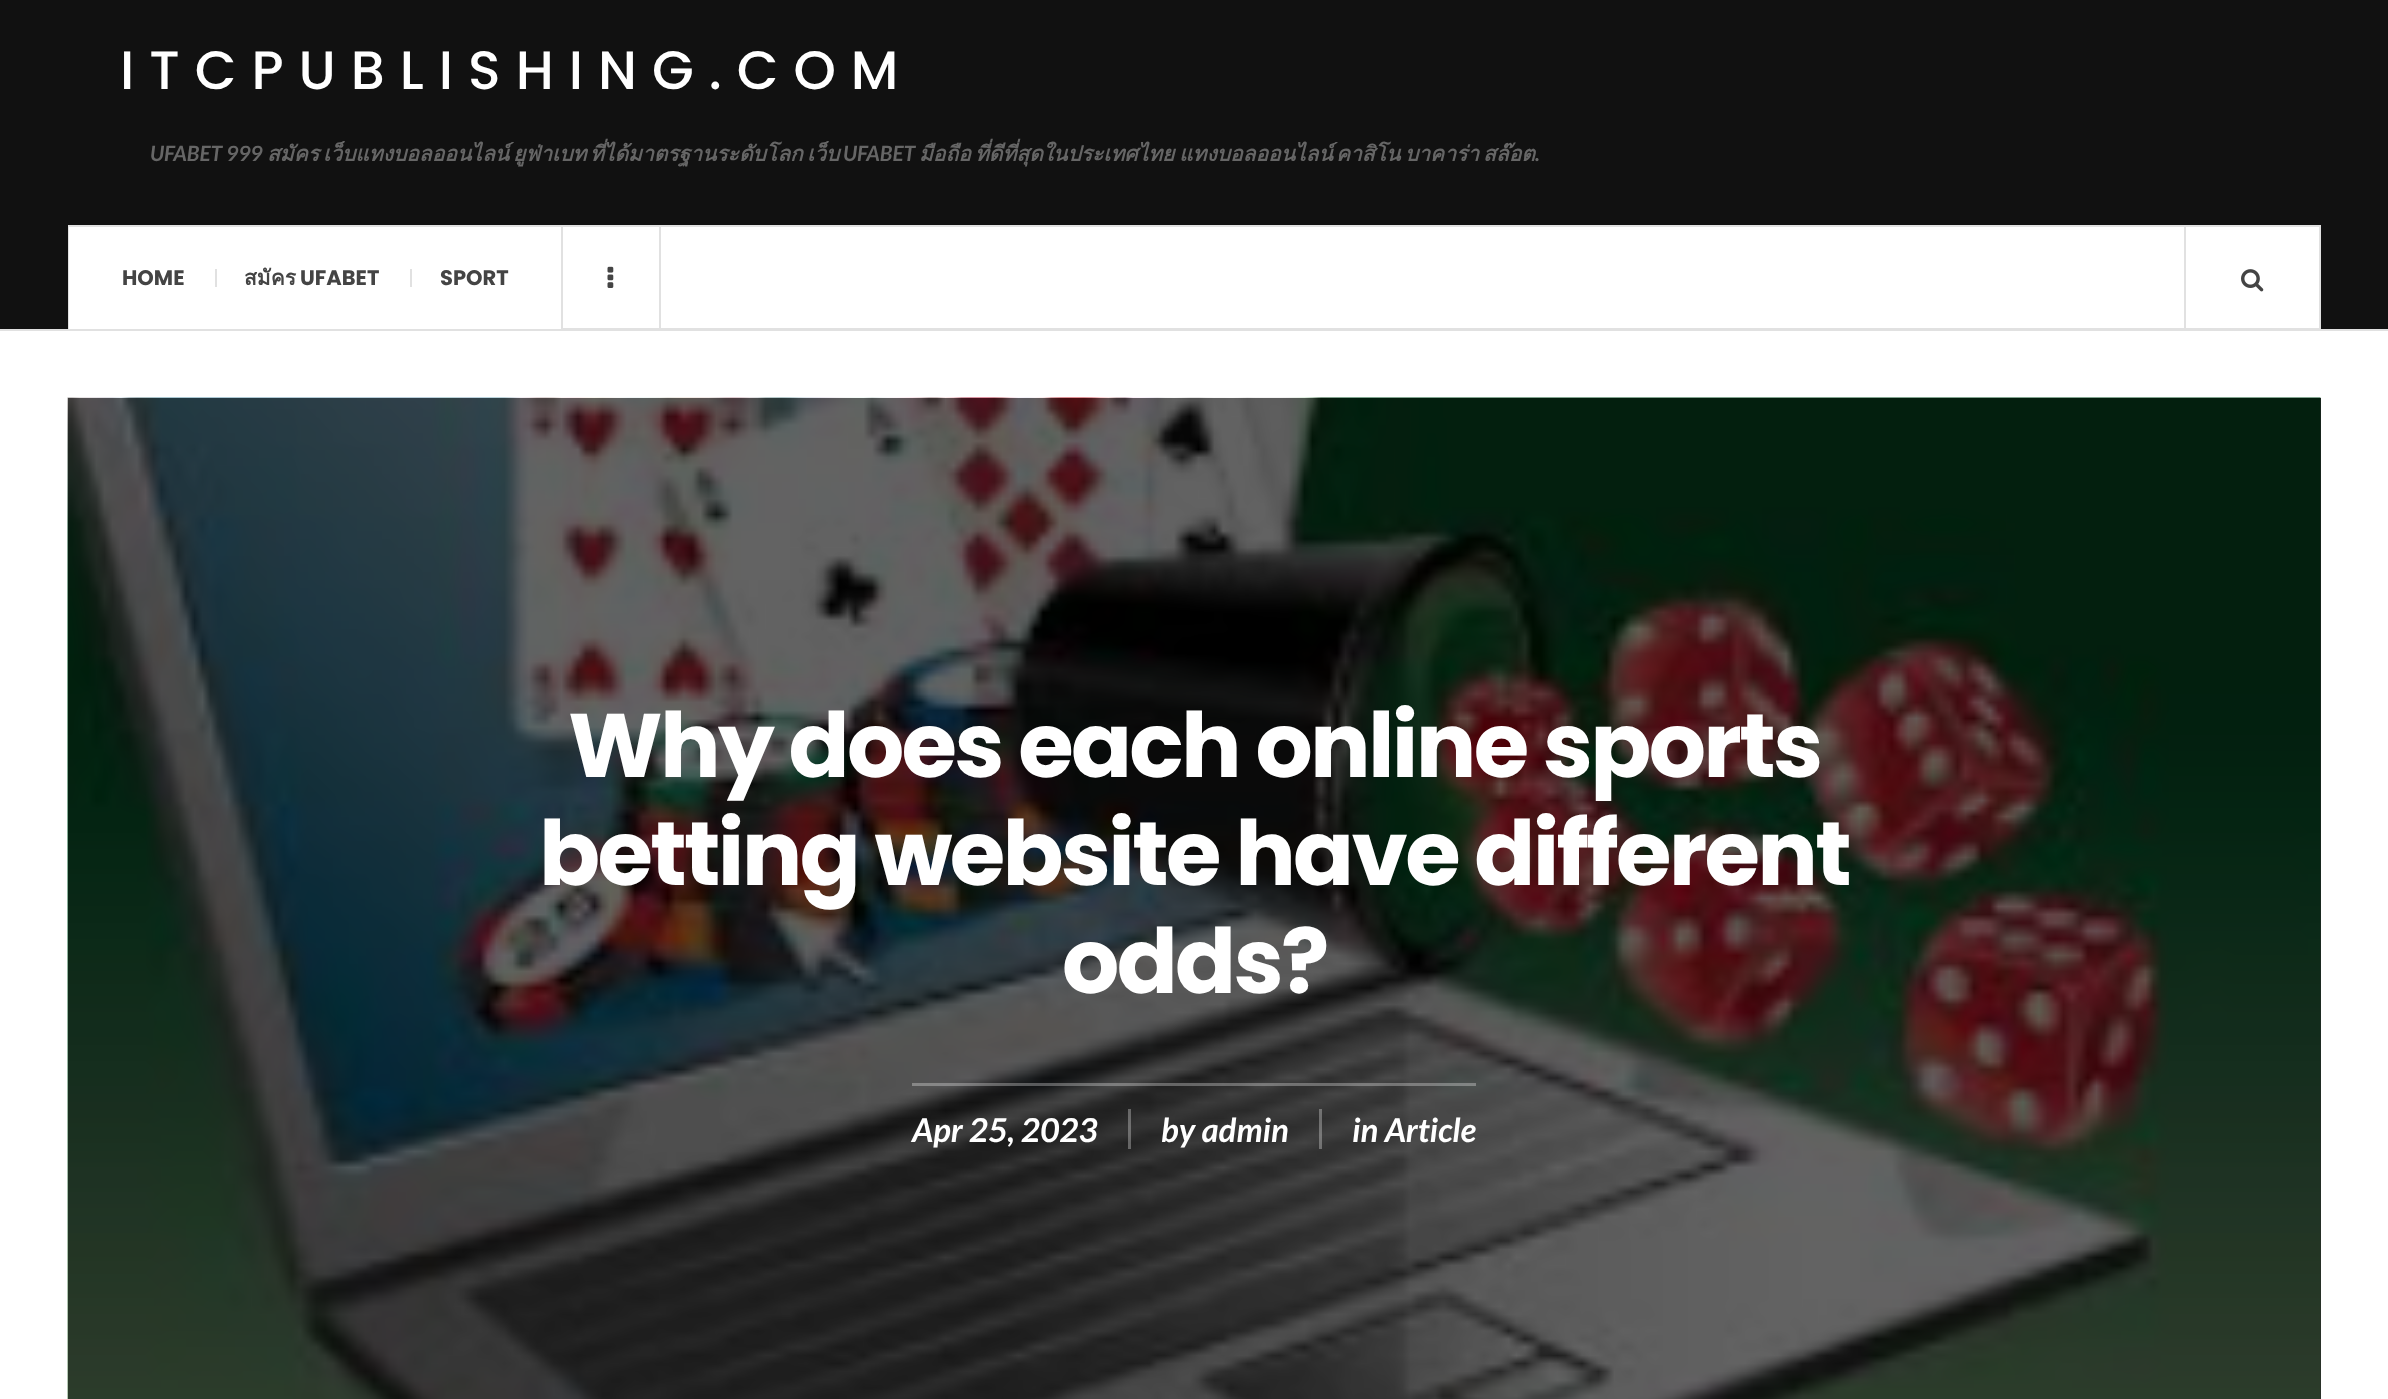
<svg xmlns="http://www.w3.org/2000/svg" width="2388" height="1399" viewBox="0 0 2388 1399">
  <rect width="100%" height="100%" fill="rgb(255,255,255)"/>
  <rect x="0" y="0" width="2388" height="329" fill="rgb(17,17,17)"/>
  <rect x="0" y="329" width="2388" height="2" fill="rgb(225,225,225)"/>
  <text x="120" y="89" font-family="Poppins" font-size="54" font-weight="500" letter-spacing="15" fill="rgb(255,255,255)">ITCPUBLISHING.COM</text>
  <text x="150" y="161" font-family="Lato" font-size="21" font-weight="bold" font-style="italic" fill="rgb(102,102,102)">UFABET 999</text>
  <g font-family="Loma" font-size="21" font-weight="bold" font-style="italic" fill="rgb(102,102,102)">
    <text x="267" y="161">สมัคร</text>
    <text x="323" y="161">เว็บแทงบอลออนไลน์</text>
    <text x="513" y="161">ยูฟ่าเบท</text>
    <text x="590" y="161">ที่ได้มาตรฐานระดับโลก</text>
    <text x="807" y="161">เว็บ</text>
  </g>
  <text x="843" y="161" font-family="Lato" font-size="21" font-weight="bold" font-style="italic" fill="rgb(102,102,102)">UFABET</text>
  <g font-family="Loma" font-size="21" font-weight="bold" font-style="italic" fill="rgb(102,102,102)">
    <text x="919" y="161">มือถือ</text>
    <text x="975" y="161">ที่ดีที่สุดในประเทศไทย</text>
    <text x="1179" y="161">แทงบอลออนไลน์</text>
    <text x="1336" y="161">คาสิโน</text>
    <text x="1405" y="161">บาคาร่า</text>
    <text x="1483" y="161">สล๊อต</text>
  </g>
  <text x="1535" y="161" font-family="Lato" font-size="21" font-weight="bold" font-style="italic" fill="rgb(102,102,102)">.</text>
  <rect x="563" y="227" width="1756" height="101" fill="rgb(255,255,255)"/>
  <rect x="69" y="226" width="2251" height="103" fill="none" stroke="rgb(225,225,225)" stroke-width="2"/>
  <rect x="69" y="227" width="492" height="102" fill="rgb(255,255,255)"/>
  <rect x="561" y="227" width="2" height="102" fill="rgb(225,225,225)"/>
  <text x="122" y="285" font-family="Poppins" font-size="21" font-weight="bold" fill="rgb(68,68,68)">HOME</text>
  <rect x="215" y="269" width="2" height="18" fill="rgb(225,225,225)"/>
  <text x="244" y="285" font-family="Loma" font-size="21" font-weight="bold" fill="rgb(68,68,68)">สมัคร</text>
  <text x="300" y="285" font-family="Poppins" font-size="21" font-weight="bold" fill="rgb(68,68,68)">UFABET</text>
  <rect x="410" y="269" width="2" height="18" fill="rgb(225,225,225)"/>
  <text x="440" y="285" font-family="Poppins" font-size="21" font-weight="bold" fill="rgb(68,68,68)">SPORT</text>
  <rect x="659" y="227" width="2" height="102" fill="rgb(225,225,225)"/>
  <image x="607" y="266" width="7" height="22" href="pic1.png"/>
  <rect x="2184" y="227" width="2" height="102" fill="rgb(225,225,225)"/>
  <image x="2241" y="269" width="23" height="23" href="pic2.png"/>
  <rect x="2320" y="398" width="1" height="1001" fill="rgb(41,41,41)"/>
  <image x="67" y="397" width="2254" height="1002" href="pic3.png"/>
  <g font-family="Poppins" font-size="90" font-weight="bold" letter-spacing="-2.7" fill="rgb(255,255,255)">
    <text x="568" y="777">Why does each online sports</text>
    <text x="539" y="885">betting website have different</text>
    <text x="1062" y="993">odds?</text>
  </g>
  <rect x="912" y="1083" width="564" height="3" fill="rgba(255,255,255,0.3)"/>
  <rect x="1128" y="1109" width="3" height="40" fill="rgba(255,255,255,0.3)"/>
  <text x="912" y="1142" font-family="Lato" font-size="33" font-weight="bold" font-style="italic" fill="rgb(255,255,255)">Apr 25, 2023</text>
  <rect x="1319" y="1109" width="3" height="40" fill="rgba(255,255,255,0.3)"/>
  <g font-family="Lato" font-size="33" font-weight="bold" font-style="italic" fill="rgb(255,255,255)">
    <text x="1161" y="1142">by admin</text>
    <text x="1352" y="1142">in Article</text>
  </g>
</svg>
